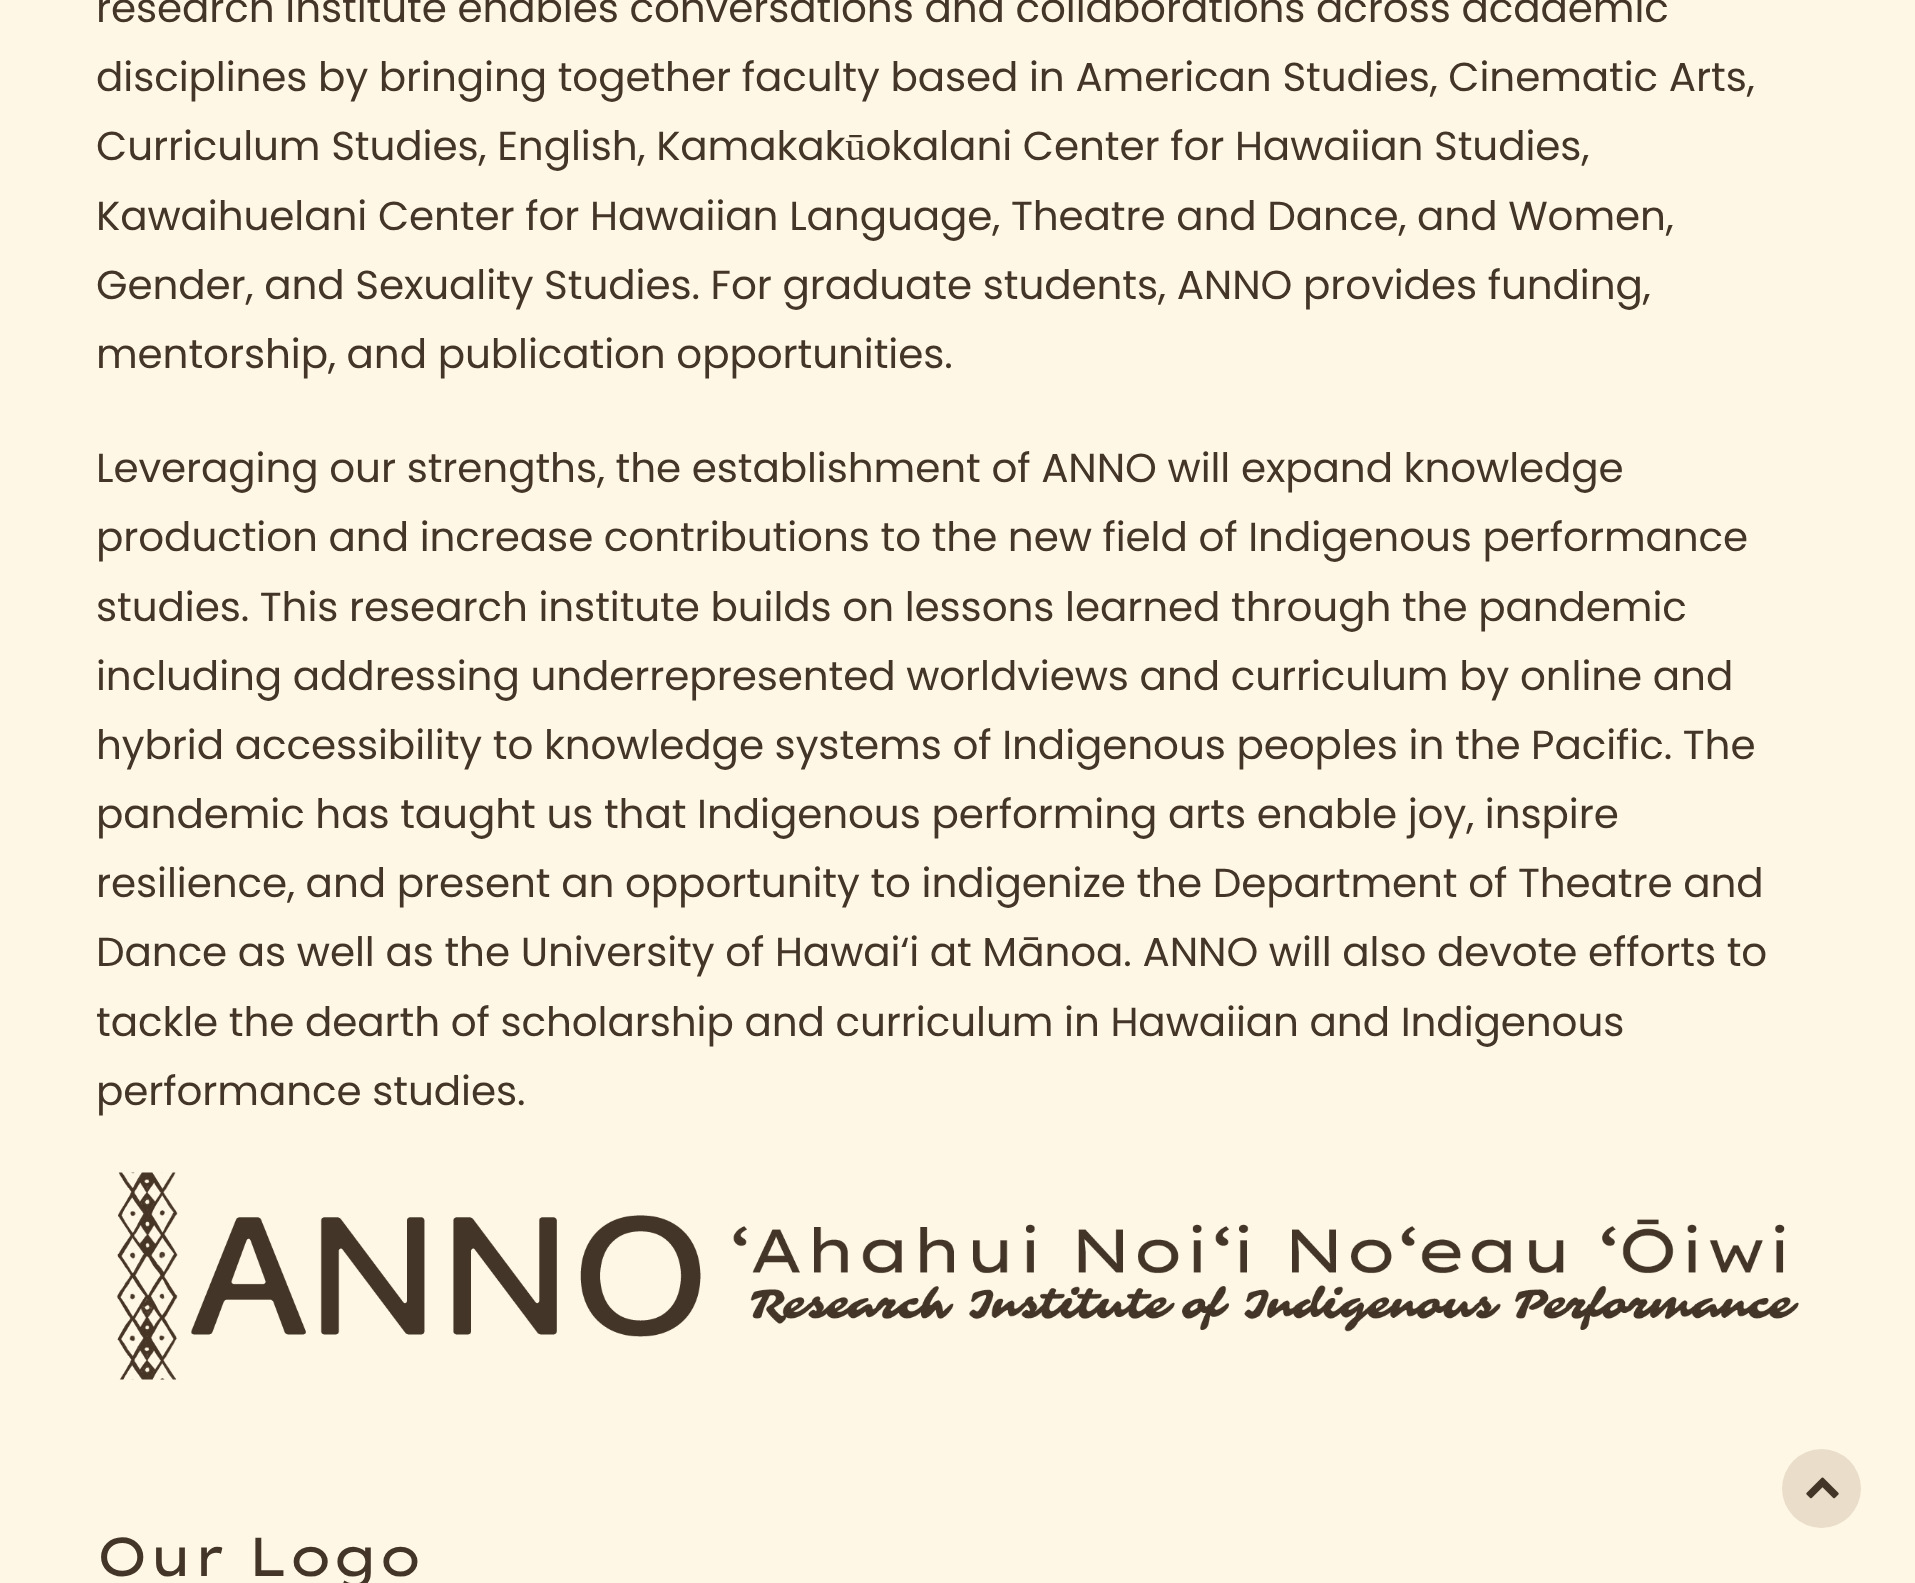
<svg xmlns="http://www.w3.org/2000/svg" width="1915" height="1583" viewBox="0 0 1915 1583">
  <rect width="100%" height="100%" fill="rgb(255,247,229)"/>
  <g font-family="Poppins" font-size="40.5" letter-spacing="-0.1" fill="rgb(67,53,39)">
    <text>
      <tspan x="96" y="22">research institute enables conversations and collaborations across academic</tspan>
      <tspan x="96" y="91">disciplines by bringing together faculty based in American Studies, Cinematic Arts,</tspan>
      <tspan x="96" y="160">Curriculum Studies, English, Kamakakūokalani Center for Hawaiian Studies,</tspan>
      <tspan x="96" y="230">Kawaihuelani Center for Hawaiian Language, Theatre and Dance, and Women,</tspan>
      <tspan x="96" y="299">Gender, and Sexuality Studies. For graduate students, ANNO provides funding,</tspan>
      <tspan x="96" y="368">mentorship, and publication opportunities.</tspan>
    </text>
    <text>
      <tspan x="96" y="482">Leveraging our strengths, the establishment of ANNO will expand knowledge</tspan>
      <tspan x="96" y="551">production and increase contributions to the new field of Indigenous performance</tspan>
      <tspan x="96" y="621">studies. This research institute builds on lessons learned through the pandemic</tspan>
      <tspan x="96" y="690">including addressing underrepresented worldviews and curriculum by online and</tspan>
      <tspan x="96" y="759">hybrid accessibility to knowledge systems of Indigenous peoples in the Pacific. The</tspan>
      <tspan x="96" y="828">pandemic has taught us that Indigenous performing arts enable joy, inspire</tspan>
      <tspan x="96" y="897">resilience, and present an opportunity to indigenize the Department of Theatre and</tspan>
      <tspan x="96" y="966">Dance as well as the University of Hawai‘i at Mānoa. ANNO will also devote efforts to</tspan>
      <tspan x="96" y="1036">tackle the dearth of scholarship and curriculum in Hawaiian and Indigenous</tspan>
      <tspan x="96" y="1105">performance studies.</tspan>
    </text>
  </g>
  <image x="116" y="1172" width="1683" height="208" href="pic1.png"/>
  <text x="96" y="1576" font-family="Lexend Giga" font-size="54.5" letter-spacing="-0.1" fill="rgb(67,53,39)">Our Logo</text>
  <circle cx="1821.5" cy="1488.5" r="39.5" fill="rgb(234,222,202)"/>
  <image x="1806" y="1477" width="33" height="22" href="pic2.png"/>
</svg>
